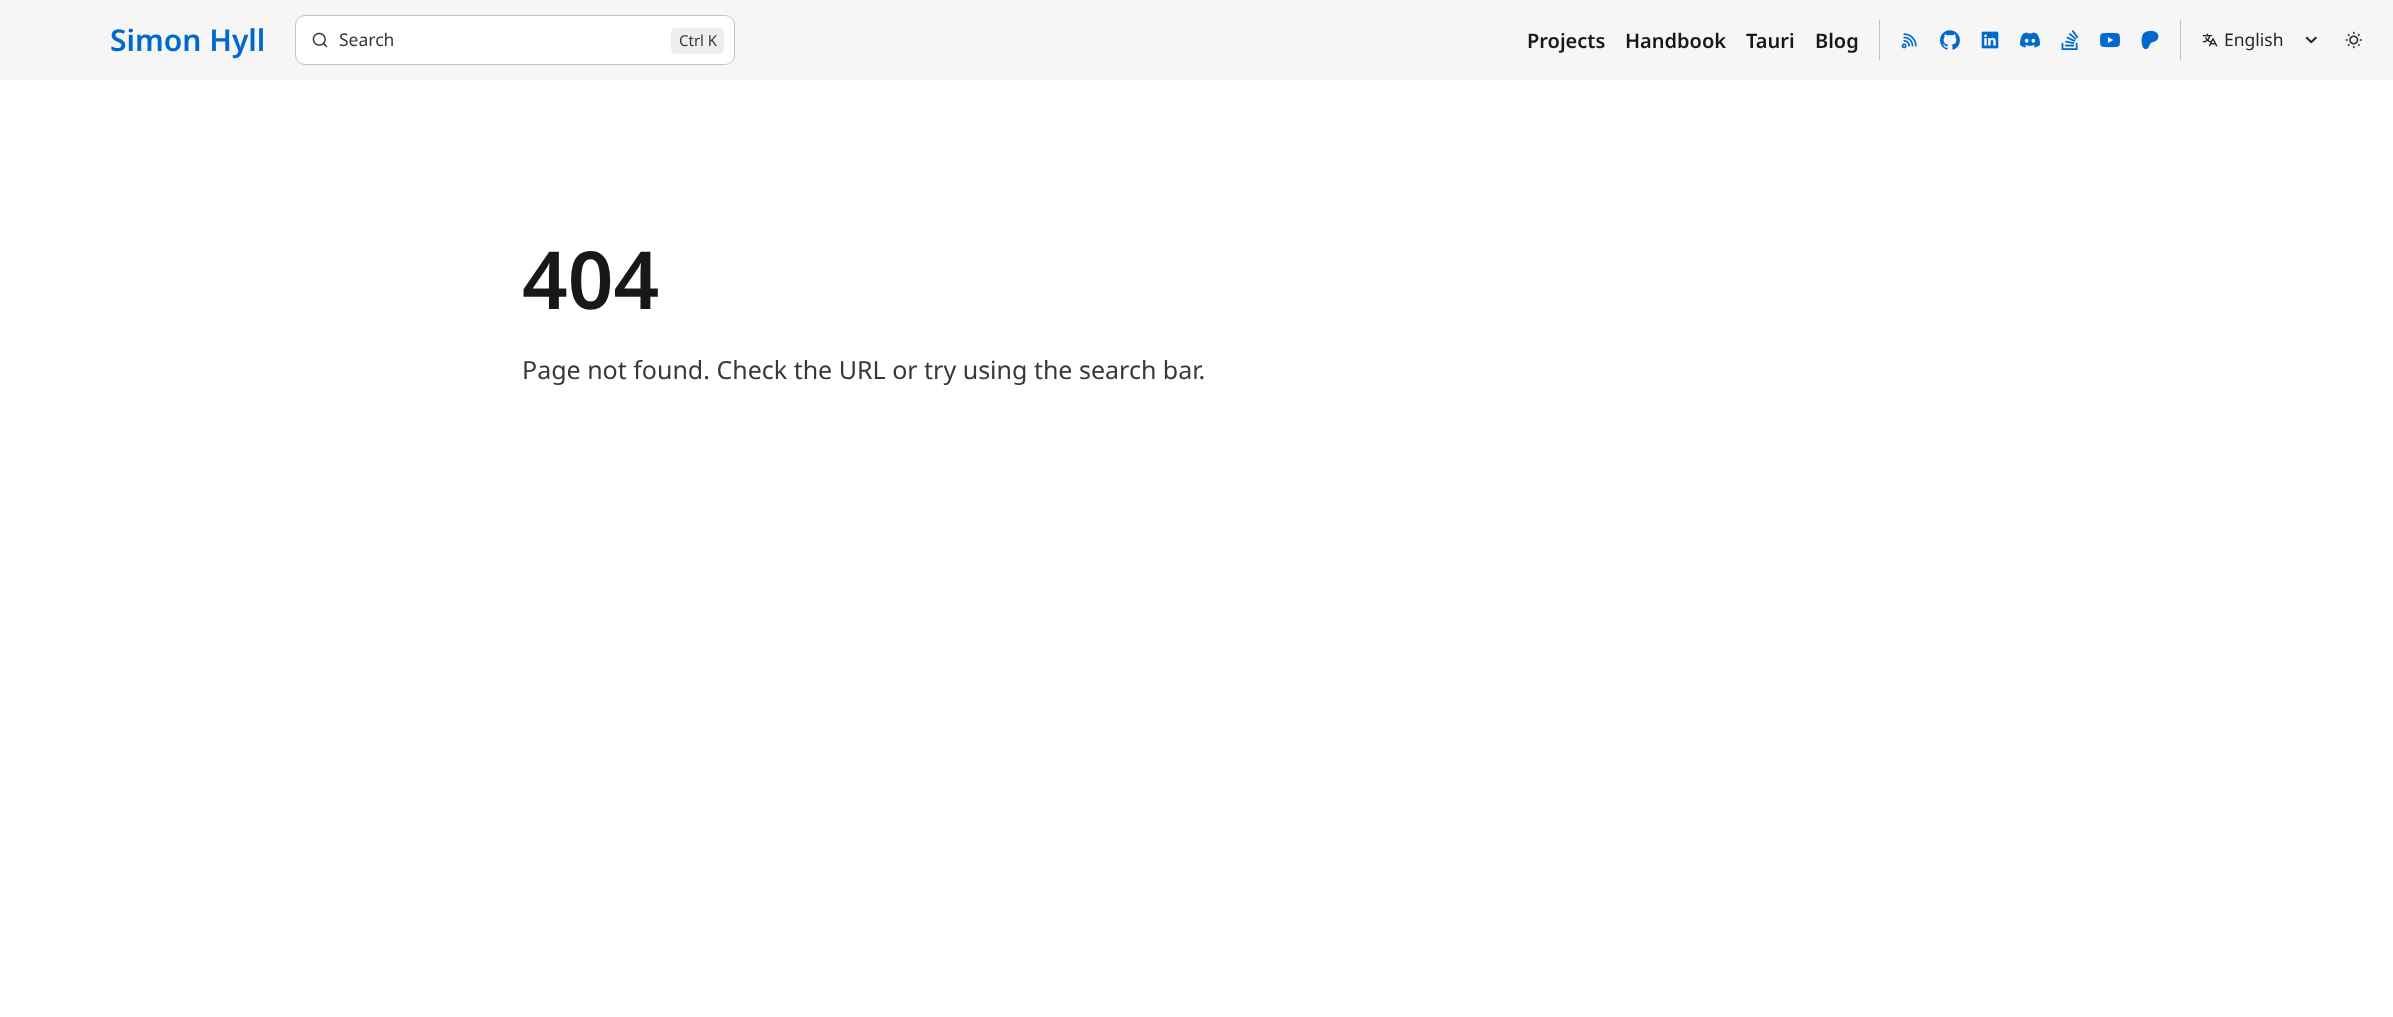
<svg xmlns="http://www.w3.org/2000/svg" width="2393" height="1017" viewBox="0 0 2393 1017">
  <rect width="100%" height="100%" fill="rgb(255,255,255)"/>
  <rect x="0" y="0" width="2393" height="80" fill="rgb(246,246,246)"/>
  <text x="110" y="51" font-family="Noto Sans" font-size="30" font-weight="600" fill="rgb(0,105,205)">Simon Hyll</text>
  <rect x="295.5" y="15.5" width="439" height="49" rx="9.5" fill="rgb(255,255,255)" stroke="rgb(194,194,194)"/>
  <image x="312" y="32" width="16" height="16" href="pic1.png"/>
  <text x="339" y="46" font-family="Noto Sans" font-size="17.5" fill="rgb(56,56,56)">Search</text>
  <rect x="671" y="28" width="53" height="26" rx="5" fill="rgb(238,238,238)"/>
  <text x="679" y="46" font-family="Noto Sans" font-size="15" fill="rgb(56,56,56)">Ctrl K</text>
  <rect x="1879" y="20" width="1" height="40" fill="rgb(194,194,194)"/>
  <g font-family="Noto Sans" font-size="20" font-weight="600" fill="rgb(24,24,24)">
    <text x="1527" y="48">Projects</text>
    <text x="1625" y="48">Handbook</text>
    <text x="1746" y="48">Tauri</text>
    <text x="1815" y="48">Blog</text>
  </g>
  <image x="1901" y="33" width="16" height="16" href="pic2.png"/>
  <image x="1940" y="30" width="20" height="20" href="pic3.png"/>
  <image x="1981" y="31" width="18" height="18" href="pic4.png"/>
  <image x="2020" y="32" width="20" height="16" href="pic5.png"/>
  <image x="2061" y="30" width="18" height="20" href="pic6.png"/>
  <image x="2100" y="32" width="20" height="16" href="pic7.png"/>
  <image x="2141" y="30" width="18" height="20" href="pic8.png"/>
  <rect x="2180" y="20" width="1" height="40" fill="rgb(194,194,194)"/>
  <image x="2202" y="33" width="16" height="14" href="pic9.png"/>
  <text x="2224" y="46" font-family="Noto Sans" font-size="17.5" fill="rgb(39,39,39)">English</text>
  <image x="2305" y="36" width="12" height="8" href="pic10.png"/>
  <image x="2345" y="31" width="17" height="18" href="pic11.png"/>
  <text x="522" y="309" font-family="Noto Sans" font-size="80" font-weight="600" fill="rgb(24,24,24)">404</text>
  <text x="522" y="379" font-family="Noto Sans" font-size="25" fill="rgb(56,56,56)">Page not found. Check the URL or try using the search bar.</text>
</svg>
